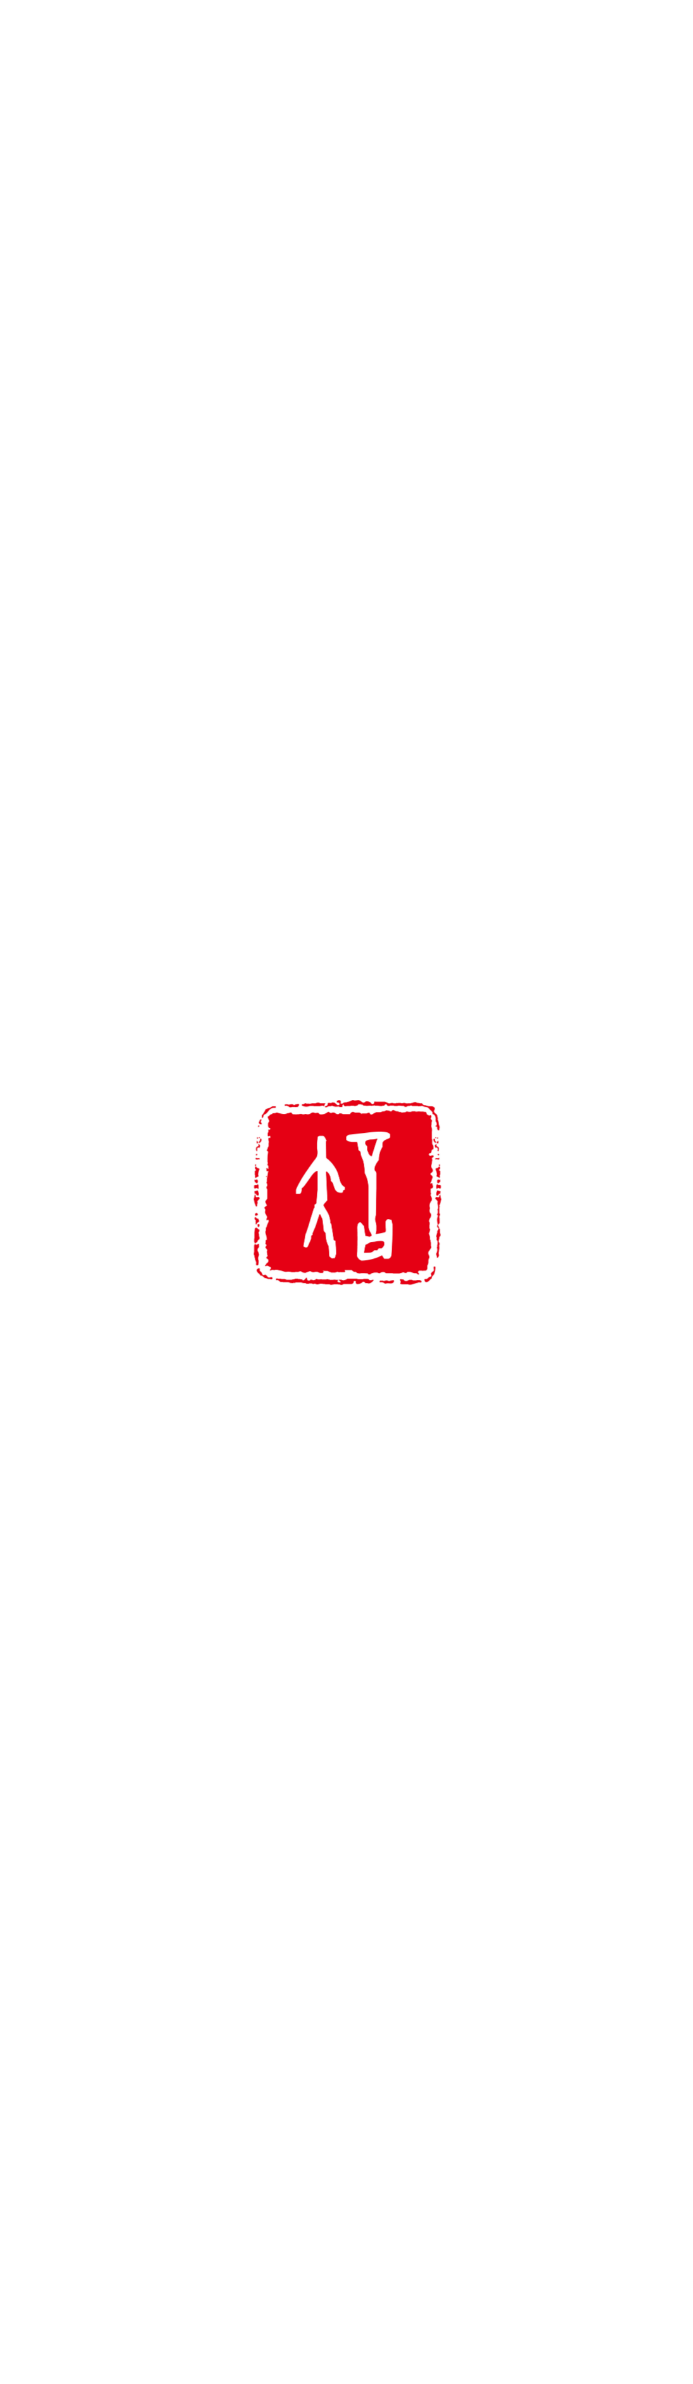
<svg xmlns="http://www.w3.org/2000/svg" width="693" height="2384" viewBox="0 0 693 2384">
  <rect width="100%" height="100%" fill="rgb(255,255,255)"/>
  <image x="253" y="1100" width="189" height="186" href="pic1.png"/>
</svg>
